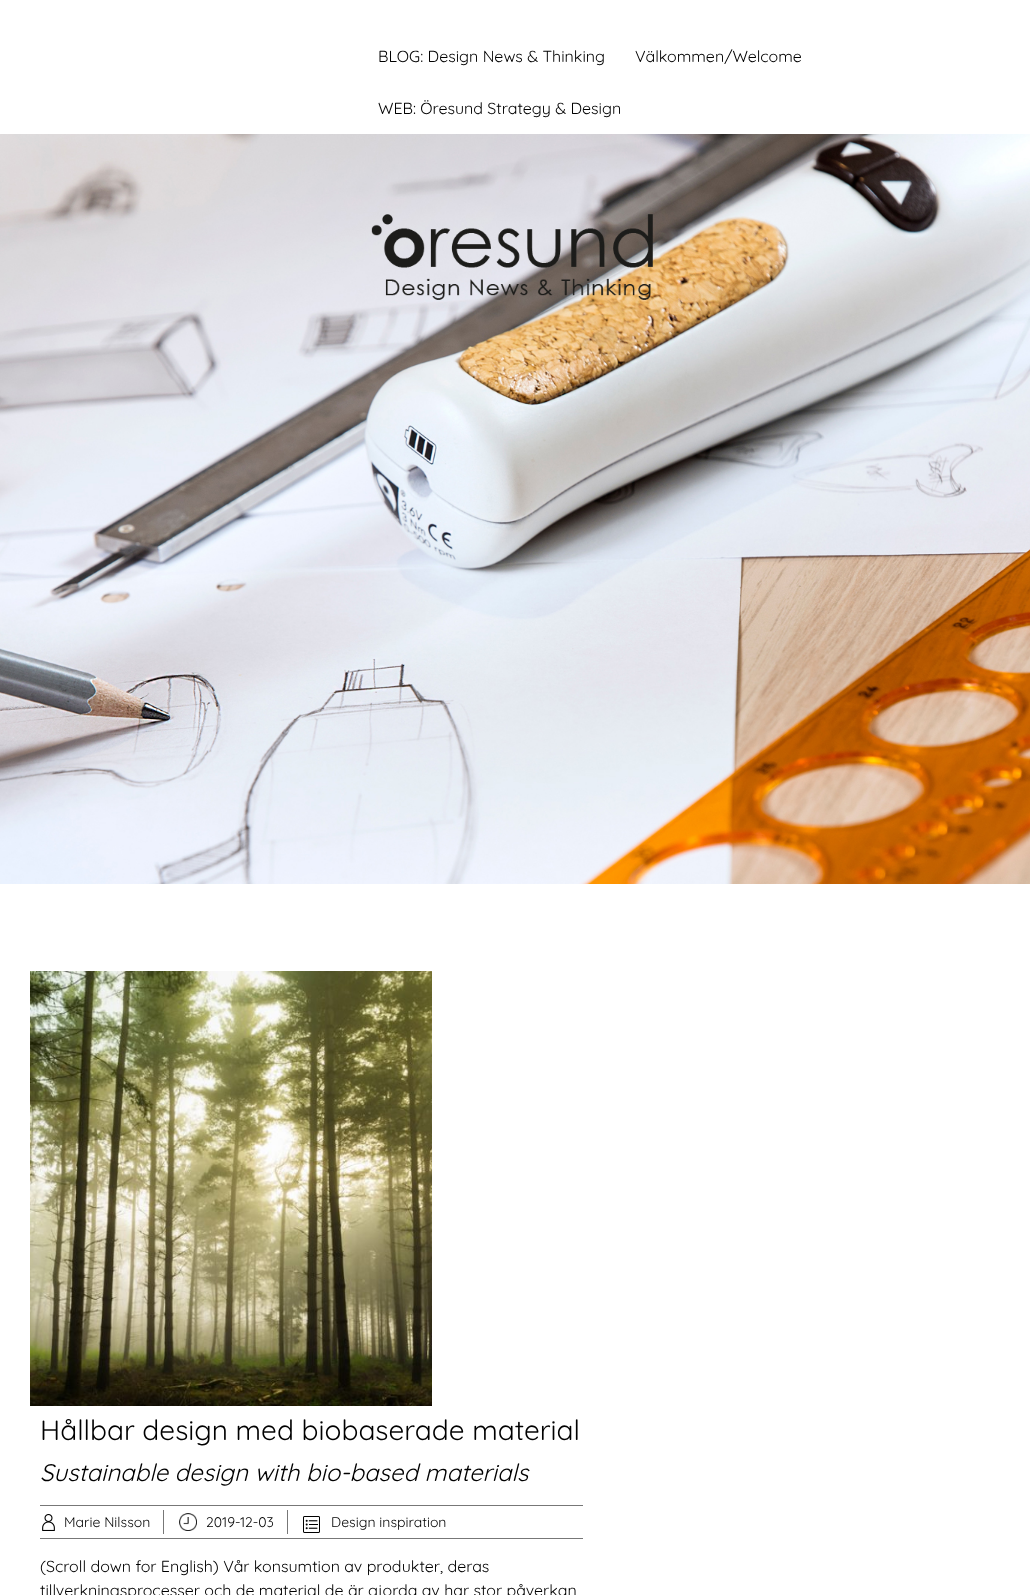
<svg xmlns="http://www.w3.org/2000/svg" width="1030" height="1595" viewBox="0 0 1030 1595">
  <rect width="100%" height="100%" fill="rgb(255,255,255)"/>
  <g font-family="Quicksand" font-size="16" font-weight="300" fill="rgb(0,0,0)">
    <text x="378" y="62">BLOG: Design News &amp; Thinking</text>
    <text x="635" y="62">Välkommen/Welcome</text>
    <text x="378" y="114">WEB: Öresund Strategy &amp; Design</text>
  </g>
  <image x="0" y="134" width="1030" height="750" href="pic1.png"/>
  <image x="30" y="971" width="402" height="435" href="pic2.png"/>
  <text x="40" y="1440" font-family="Quicksand" font-size="28" font-weight="300" fill="rgb(0,0,0)">Hållbar design med biobaserade material</text>
  <text x="40" y="1481" font-family="Quicksand" font-size="24" font-weight="300" font-style="italic" fill="rgb(0,0,0)">Sustainable design with bio-based materials</text>
  <rect x="40" y="1505" width="543" height="1" fill="rgb(119,119,119)"/>
  <rect x="40" y="1538" width="543" height="1" fill="rgb(119,119,119)"/>
  <image x="42" y="1514" width="13" height="17" href="pic3.png"/>
  <text x="64" y="1527" font-family="Quicksand" font-size="14" font-weight="300" fill="rgb(0,0,0)">Marie Nilsson</text>
  <rect x="163" y="1510" width="1" height="24" fill="rgb(119,119,119)"/>
  <image x="179" y="1513" width="18" height="18" href="pic4.png"/>
  <text x="206" y="1527" font-family="Quicksand" font-size="14" font-weight="300" fill="rgb(0,0,0)">2019-12-03</text>
  <image x="303" y="1516" width="17" height="17" href="pic5.png"/>
  <rect x="287" y="1510" width="1" height="24" fill="rgb(119,119,119)"/>
  <text x="331" y="1527" font-family="Quicksand" font-size="14" font-weight="300" fill="rgb(0,0,0)">Design inspiration</text>
  <g font-family="Quicksand" font-size="16" font-weight="300" fill="rgb(0,0,0)">
    <text>
      <tspan x="40" y="1572">(Scroll down for English) Vår konsumtion av produkter, deras</tspan>
      <tspan x="40" y="1596">tillverkningsprocesser och de material de är gjorda av har stor påverkan</tspan>
    </text>
  </g>
</svg>
